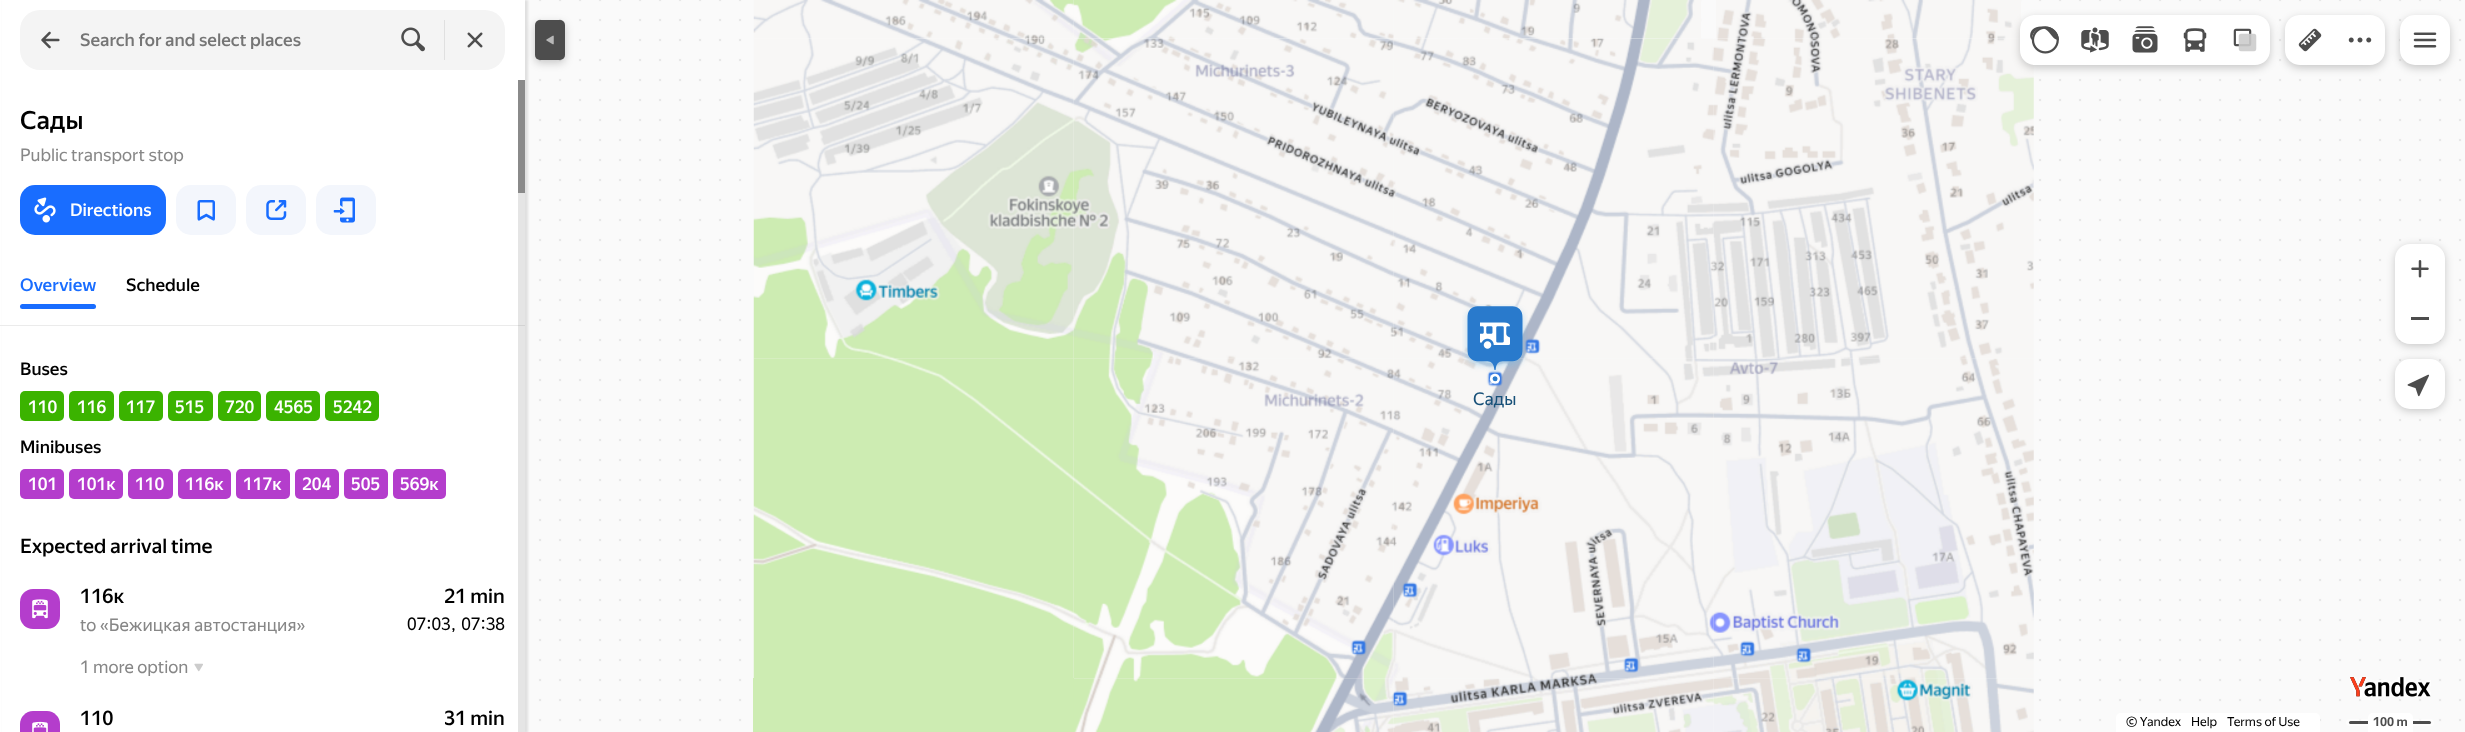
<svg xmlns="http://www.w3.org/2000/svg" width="2465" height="732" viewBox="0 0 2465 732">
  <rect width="100%" height="100%" fill="rgb(255,255,255)"/>
  <image x="525" y="0" width="1940" height="732" href="pic1.png"/>
  <rect x="3" y="0" width="525" height="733" fill="rgba(0,0,0,0.1)" filter="blur(1px)"/>
  <rect x="535" y="23" width="30" height="40" rx="5" fill="rgba(0,0,0,0.2)" filter="blur(4px)"/>
  <rect x="2" y="0" width="523" height="732" fill="rgb(255,255,255)"/>
  <rect x="20" y="10" width="485" height="60" rx="20" fill="rgb(244,244,244)"/>
  <image x="41" y="31" width="19" height="18" href="pic2.png"/>
  <text x="80" y="46" font-family="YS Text" font-size="17.5" font-weight="500" fill="rgb(117,117,117)">Search for and select places</text>
  <image x="401" y="27" width="24" height="25" href="pic3.png"/>
  <rect x="444" y="20" width="1" height="40" fill="rgb(224,224,224)"/>
  <image x="467" y="32" width="16" height="16" href="pic4.png"/>
  <image x="1073" y="0" width="321" height="39" href="pic25.png"/>
  <image x="1393" y="0" width="308" height="39" href="pic26.png"/>
  <image x="753" y="38" width="321" height="321" href="pic28.png"/>
  <image x="1073" y="38" width="321" height="321" href="pic29.png"/>
  <image x="1393" y="38" width="321" height="321" href="pic30.png"/>
  <image x="1713" y="38" width="321" height="321" href="pic31.png"/>
  <image x="1716" y="0" width="305" height="39" href="pic27.png"/>
  <rect x="2020" y="18" width="250" height="50" rx="15" fill="rgba(0,0,0,0.2)" filter="blur(4px)"/>
  <path d="M2035 15H2070V65H2035C2026.5 65 2020 58.5 2020 50V30C2020 21.5 2026.5 15 2035 15Z" fill="rgb(255,255,255)"/>
  <image x="2030" y="26" width="29" height="28" href="pic5.png"/>
  <rect x="2070" y="15" width="150" height="50" fill="rgb(255,255,255)"/>
  <image x="2081" y="27" width="28" height="26" href="pic6.png"/>
  <path d="M2220 15H2255C2263.5 15 2270 21.5 2270 30V50C2270 58.5 2263.5 65 2255 65H2220Z" fill="rgb(255,255,255)"/>
  <image x="2233" y="28" width="24" height="24" href="pic7.png"/>
  <image x="2132" y="26" width="26" height="27" href="pic8.png"/>
  <image x="2183" y="28" width="24" height="24" href="pic9.png"/>
  <rect x="2285" y="18" width="100" height="50" rx="15" fill="rgba(0,0,0,0.2)" filter="blur(4px)"/>
  <path d="M2300 15H2335V65H2300C2291.5 65 2285 58.5 2285 50V30C2285 21.5 2291.5 15 2300 15Z" fill="rgb(255,255,255)"/>
  <image x="2298" y="28" width="24" height="24" href="pic10.png"/>
  <path d="M2335 15H2370C2378.5 15 2385 21.5 2385 30V50C2385 58.5 2378.5 65 2370 65H2335Z" fill="rgb(255,255,255)"/>
  <image x="2348" y="37" width="24" height="6" href="pic11.png"/>
  <rect x="2400" y="18" width="50" height="50" rx="15" fill="rgba(0,0,0,0.2)" filter="blur(4px)"/>
  <rect x="2400" y="15" width="50" height="50" rx="15" fill="rgb(255,255,255)"/>
  <image x="2413" y="32" width="24" height="16" href="pic12.png"/>
  <rect x="2395" y="246" width="50" height="100" rx="15" fill="rgba(0,0,0,0.2)" filter="blur(4px)"/>
  <path d="M2410 244H2430C2438.5 244 2445 250.5 2445 259V294H2395V259C2395 250.5 2401.5 244 2410 244Z" fill="rgb(255,255,255)"/>
  <image x="2411" y="260" width="18" height="18" href="pic13.png"/>
  <path d="M2395 294H2445V329C2445 337.5 2438.5 344 2430 344H2410C2401.5 344 2395 337.5 2395 329Z" fill="rgb(255,255,255)"/>
  <rect x="2411" y="317" width="18" height="3" fill="rgb(77,77,77)"/>
  <rect x="2395" y="361" width="50" height="50" rx="15" fill="rgba(0,0,0,0.2)" filter="blur(4px)"/>
  <rect x="2395" y="359" width="50" height="50" rx="15" fill="rgb(255,255,255)"/>
  <image x="2407" y="374" width="22" height="23" href="pic14.png"/>
  <rect x="535" y="20" width="30" height="40" rx="5" fill="rgb(77,77,77)"/>
  <image x="546" y="35" width="8" height="10" href="pic15.png"/>
  <text x="20" y="129" font-family="YS Text" font-size="25" font-weight="500" fill="rgb(0,0,0)">Сады</text>
  <text x="20" y="161" font-family="YS Text" font-size="17.5" fill="rgb(135,135,135)">Public transport stop</text>
  <rect x="20" y="185" width="146" height="50" rx="15" fill="rgb(25,109,255)"/>
  <image x="34" y="197" width="22" height="26" href="pic16.png"/>
  <text x="70" y="216" font-family="YS Text" font-size="17.5" font-weight="500" fill="rgb(255,255,255)">Directions</text>
  <rect x="176" y="185" width="60" height="50" rx="15" fill="rgb(243,246,252)"/>
  <image x="197" y="200" width="18" height="21" href="pic17.png"/>
  <rect x="246" y="185" width="60" height="50" rx="15" fill="rgb(243,246,252)"/>
  <image x="266" y="200" width="21" height="20" href="pic18.png"/>
  <rect x="316" y="185" width="60" height="50" rx="15" fill="rgb(243,246,252)"/>
  <image x="333" y="197" width="22" height="26" href="pic19.png"/>
  <text x="20" y="291" font-family="YS Text" font-size="17.5" font-weight="500" fill="rgb(25,109,255)">Overview</text>
  <text x="126" y="291" font-family="YS Text" font-size="17.5" font-weight="500" fill="rgb(0,0,0)">Schedule</text>
  <rect x="20" y="304" width="76" height="5" rx="2.5" fill="rgb(25,109,255)"/>
  <rect x="0" y="325" width="525" height="1" fill="rgb(235,235,235)"/>
  <text x="20" y="375" font-family="YS Text" font-size="17.5" font-weight="500" fill="rgb(0,0,0)">Buses</text>
  <rect x="20" y="391" width="44" height="30" rx="5" fill="rgb(59,179,0)"/>
  <text x="28" y="413" font-family="YS Text" font-size="17.5" font-weight="500" fill="rgb(255,255,255)">110</text>
  <rect x="69" y="391" width="45" height="30" rx="5" fill="rgb(59,179,0)"/>
  <text x="77" y="413" font-family="YS Text" font-size="17.5" font-weight="500" fill="rgb(255,255,255)">116</text>
  <rect x="119" y="391" width="44" height="30" rx="5" fill="rgb(59,179,0)"/>
  <text x="126" y="413" font-family="YS Text" font-size="17.5" font-weight="500" fill="rgb(255,255,255)">117</text>
  <rect x="168" y="391" width="45" height="30" rx="5" fill="rgb(59,179,0)"/>
  <text x="175" y="413" font-family="YS Text" font-size="17.5" font-weight="500" fill="rgb(255,255,255)">515</text>
  <rect x="218" y="391" width="43" height="30" rx="5" fill="rgb(59,179,0)"/>
  <text x="225" y="413" font-family="YS Text" font-size="17.5" font-weight="500" fill="rgb(255,255,255)">720</text>
  <rect x="266" y="391" width="54" height="30" rx="5" fill="rgb(59,179,0)"/>
  <text x="274" y="413" font-family="YS Text" font-size="17.5" font-weight="500" fill="rgb(255,255,255)">4565</text>
  <rect x="325" y="391" width="54" height="30" rx="5" fill="rgb(59,179,0)"/>
  <text x="333" y="413" font-family="YS Text" font-size="17.5" font-weight="500" fill="rgb(255,255,255)">5242</text>
  <text x="20" y="453" font-family="YS Text" font-size="17.5" font-weight="500" fill="rgb(0,0,0)">Minibuses</text>
  <rect x="20" y="469" width="44" height="30" rx="5" fill="rgb(180,61,204)"/>
  <text x="28" y="490" font-family="YS Text" font-size="17.5" font-weight="500" fill="rgb(255,255,255)">101</text>
  <rect x="69" y="469" width="54" height="30" rx="5" fill="rgb(180,61,204)"/>
  <text x="77" y="490" font-family="YS Text" font-size="17.5" font-weight="500" fill="rgb(255,255,255)">101к</text>
  <rect x="128" y="469" width="45" height="30" rx="5" fill="rgb(180,61,204)"/>
  <text x="135" y="490" font-family="YS Text" font-size="17.5" font-weight="500" fill="rgb(255,255,255)">110</text>
  <rect x="178" y="469" width="53" height="30" rx="5" fill="rgb(180,61,204)"/>
  <text x="185" y="490" font-family="YS Text" font-size="17.5" font-weight="500" fill="rgb(255,255,255)">116к</text>
  <rect x="236" y="469" width="54" height="30" rx="5" fill="rgb(180,61,204)"/>
  <text x="243" y="490" font-family="YS Text" font-size="17.5" font-weight="500" fill="rgb(255,255,255)">117к</text>
  <rect x="295" y="469" width="44" height="30" rx="5" fill="rgb(180,61,204)"/>
  <text x="302" y="490" font-family="YS Text" font-size="17.5" font-weight="500" fill="rgb(255,255,255)">204</text>
  <rect x="344" y="469" width="44" height="30" rx="5" fill="rgb(180,61,204)"/>
  <text x="351" y="490" font-family="YS Text" font-size="17.5" font-weight="500" fill="rgb(255,255,255)">505</text>
  <rect x="393" y="469" width="53" height="30" rx="5" fill="rgb(180,61,204)"/>
  <text x="400" y="490" font-family="YS Text" font-size="17.5" font-weight="500" fill="rgb(255,255,255)">569к</text>
  <text x="20" y="553" font-family="YS Text" font-size="20" font-weight="500" fill="rgb(0,0,0)">Expected arrival time</text>
  <rect x="20" y="589" width="40" height="40" rx="13" fill="rgb(180,61,204)"/>
  <image x="32" y="599" width="16" height="20" href="pic20.png"/>
  <text x="80" y="603" font-family="YS Text" font-size="20" font-weight="500" fill="rgb(0,0,0)">116к</text>
  <text x="80" y="631" font-family="YS Text" font-size="17.5" fill="rgb(135,135,135)">to «Бежицкая автостанция»</text>
  <text x="444" y="603" font-family="YS Text" font-size="20" font-weight="500" fill="rgb(0,0,0)">21 min</text>
  <text x="407" y="630" font-family="YS Text" font-size="17.5" fill="rgb(0,0,0)">07:03, 07:38</text>
  <text x="80" y="673" font-family="YS Text" font-size="17.5" fill="rgb(135,135,135)">1 more option</text>
  <image x="194" y="663" width="9" height="9" href="pic21.png"/>
  <path d="M33 711H47C54 711 60 717 60 724V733H20V724C20 717 26 711 33 711Z" fill="rgb(180,61,204)"/>
  <image x="32" y="721" width="16" height="11" href="pic22.png"/>
  <g font-family="YS Text" font-size="20" font-weight="500" fill="rgb(0,0,0)">
    <text x="80" y="725">110</text>
    <text x="444" y="725">31 min</text>
  </g>
  <rect x="518" y="80" width="7" height="113" fill="rgb(138,138,138)"/>
  <rect x="518" y="193" width="7" height="539" fill="rgba(0,0,0,0.1)"/>
  <image x="2350" y="677" width="81" height="20" href="pic23.png"/>
  <path d="M2121 713H2315C2318 713 2320 715 2320 718V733H2116V718C2116 715 2118 713 2121 713Z" fill="rgb(255,255,255)"/>
  <g font-family="YS Text" font-size="12.5" fill="rgb(0,0,0)">
    <text x="2126" y="726">© Yandex</text>
    <text x="2191" y="726">Help</text>
    <text x="2227" y="726">Terms of Use</text>
  </g>
  <rect x="2346" y="719" width="88" height="7" rx="3.5" fill="rgba(255,255,255,0.6)"/>
  <rect x="2349" y="721" width="82" height="3" rx="1.5" fill="rgb(77,77,77)"/>
  <path d="M2373 713H2408C2411 713 2413 715 2413 718V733H2368V718C2368 715 2370 713 2373 713Z" fill="rgb(255,255,255)"/>
  <text x="2373" y="726" font-family="YS Text" font-size="12.5" font-weight="bold" fill="rgb(77,77,77)">100 m</text>
  <image x="753" y="0" width="321" height="39" href="pic24.png"/>
  <image x="753" y="358" width="321" height="320" href="pic32.png"/>
  <image x="1073" y="358" width="321" height="321" href="pic33.png"/>
  <image x="1393" y="358" width="321" height="321" href="pic34.png"/>
  <image x="1713" y="358" width="321" height="321" href="pic35.png"/>
  <rect x="753" y="678" width="321" height="54" fill="rgb(205,236,178)"/>
  <image x="1074" y="678" width="320" height="54" href="pic36.png"/>
  <image x="1393" y="678" width="321" height="54" href="pic37.png"/>
  <image x="1713" y="678" width="321" height="54" href="pic38.png"/>
  <image x="1462" y="304" width="66" height="80" href="pic39.png"/>
  <image x="1480" y="322" width="30" height="27" href="pic40.png"/>
  <text x="1473" y="405" font-family="YS Text" font-size="17.5" fill="rgb(23,80,120)">Сады</text>
</svg>
